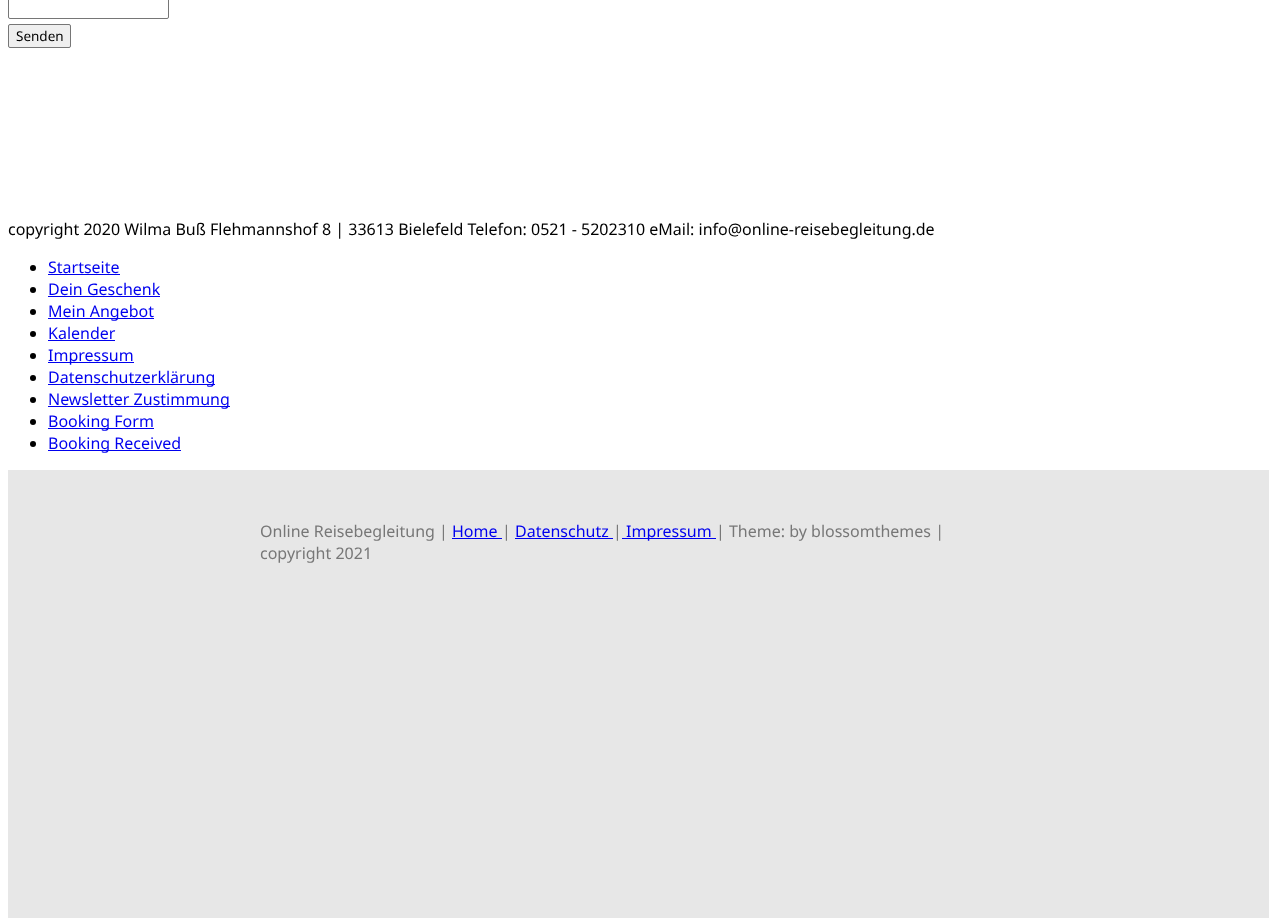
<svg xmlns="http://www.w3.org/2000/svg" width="1277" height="918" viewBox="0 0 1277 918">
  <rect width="100%" height="100%" fill="rgb(255,255,255)"/>
  <rect x="8.5" y="-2.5" width="160" height="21" rx="1.5" fill="none" stroke="rgb(118,118,118)"/>
  <rect x="8.5" y="24.5" width="62" height="23" rx="1.5" fill="rgb(239,239,239)" stroke="rgb(118,118,118)"/>
  <text x="16" y="41" font-family="Noto Sans" font-size="13.5" fill="rgb(0,0,0)">Senden</text>
  <text x="8" y="235" font-family="Noto Sans" font-size="16" fill="rgb(0,0,0)">copyright 2020 Wilma Buß Flehmannshof 8 | 33613 Bielefeld Telefon: 0521 - 5202310 eMail: info@online-reisebegleitung.de</text>
  <circle cx="33" cy="268" r="3" fill="rgb(0,0,0)"/>
  <text x="48" y="273" font-family="Noto Sans" font-size="16" fill="rgb(0,0,238)">Startseite</text>
  <rect x="48" y="274" width="72" height="1" fill="rgb(0,0,238)"/>
  <circle cx="33" cy="290" r="3" fill="rgb(0,0,0)"/>
  <text x="48" y="295" font-family="Noto Sans" font-size="16" fill="rgb(0,0,238)">Dein Geschenk</text>
  <rect x="48" y="296" width="112" height="1" fill="rgb(0,0,238)"/>
  <circle cx="33" cy="312" r="3" fill="rgb(0,0,0)"/>
  <rect x="48" y="318" width="106" height="1" fill="rgb(0,0,238)"/>
  <text x="48" y="317" font-family="Noto Sans" font-size="16" fill="rgb(0,0,238)">Mein Angebot</text>
  <circle cx="33" cy="334" r="3" fill="rgb(0,0,0)"/>
  <text x="48" y="339" font-family="Noto Sans" font-size="16" fill="rgb(0,0,238)">Kalender</text>
  <rect x="48" y="340" width="67" height="1" fill="rgb(0,0,238)"/>
  <circle cx="33" cy="356" r="3" fill="rgb(0,0,0)"/>
  <rect x="48" y="362" width="86" height="1" fill="rgb(0,0,238)"/>
  <text x="48" y="361" font-family="Noto Sans" font-size="16" fill="rgb(0,0,238)">Impressum</text>
  <circle cx="33" cy="378" r="3" fill="rgb(0,0,0)"/>
  <rect x="48" y="384" width="167" height="1" fill="rgb(0,0,238)"/>
  <text x="48" y="383" font-family="Noto Sans" font-size="16" fill="rgb(0,0,238)">Datenschutzerklärung</text>
  <circle cx="33" cy="400" r="3" fill="rgb(0,0,0)"/>
  <rect x="48" y="406" width="182" height="1" fill="rgb(0,0,238)"/>
  <text x="48" y="405" font-family="Noto Sans" font-size="16" fill="rgb(0,0,238)">Newsletter Zustimmung</text>
  <circle cx="33" cy="422" r="3" fill="rgb(0,0,0)"/>
  <rect x="48" y="428" width="106" height="1" fill="rgb(0,0,238)"/>
  <text x="48" y="427" font-family="Noto Sans" font-size="16" fill="rgb(0,0,238)">Booking Form</text>
  <circle cx="33" cy="444" r="3" fill="rgb(0,0,0)"/>
  <rect x="48" y="450" width="133" height="1" fill="rgb(0,0,238)"/>
  <text x="48" y="449" font-family="Noto Sans" font-size="16" fill="rgb(0,0,238)">Booking Received</text>
  <rect x="8" y="470" width="1261" height="448" fill="rgb(231,231,231)"/>
  <text x="260" y="537" font-family="Noto Sans" font-size="16" fill="rgb(119,119,119)">Online Reisebegleitung |</text>
  <text x="452" y="537" font-family="Noto Sans" font-size="16" fill="rgb(0,0,238)">Home</text>
  <rect x="452" y="538" width="50" height="1" fill="rgb(0,0,238)"/>
  <text x="502" y="537" font-family="Noto Sans" font-size="16" fill="rgb(119,119,119)">|</text>
  <text x="515" y="537" font-family="Noto Sans" font-size="16" fill="rgb(0,0,238)">Datenschutz</text>
  <rect x="515" y="538" width="98" height="1" fill="rgb(0,0,238)"/>
  <text x="613" y="537" font-family="Noto Sans" font-size="16" fill="rgb(119,119,119)">|</text>
  <rect x="622" y="538" width="94" height="1" fill="rgb(0,0,238)"/>
  <text x="626" y="537" font-family="Noto Sans" font-size="16" fill="rgb(0,0,238)">Impressum</text>
  <g font-family="Noto Sans" font-size="16" fill="rgb(119,119,119)">
    <text x="716" y="537">| Theme: by blossomthemes |</text>
    <text x="260" y="559">copyright 2021</text>
  </g>
</svg>
